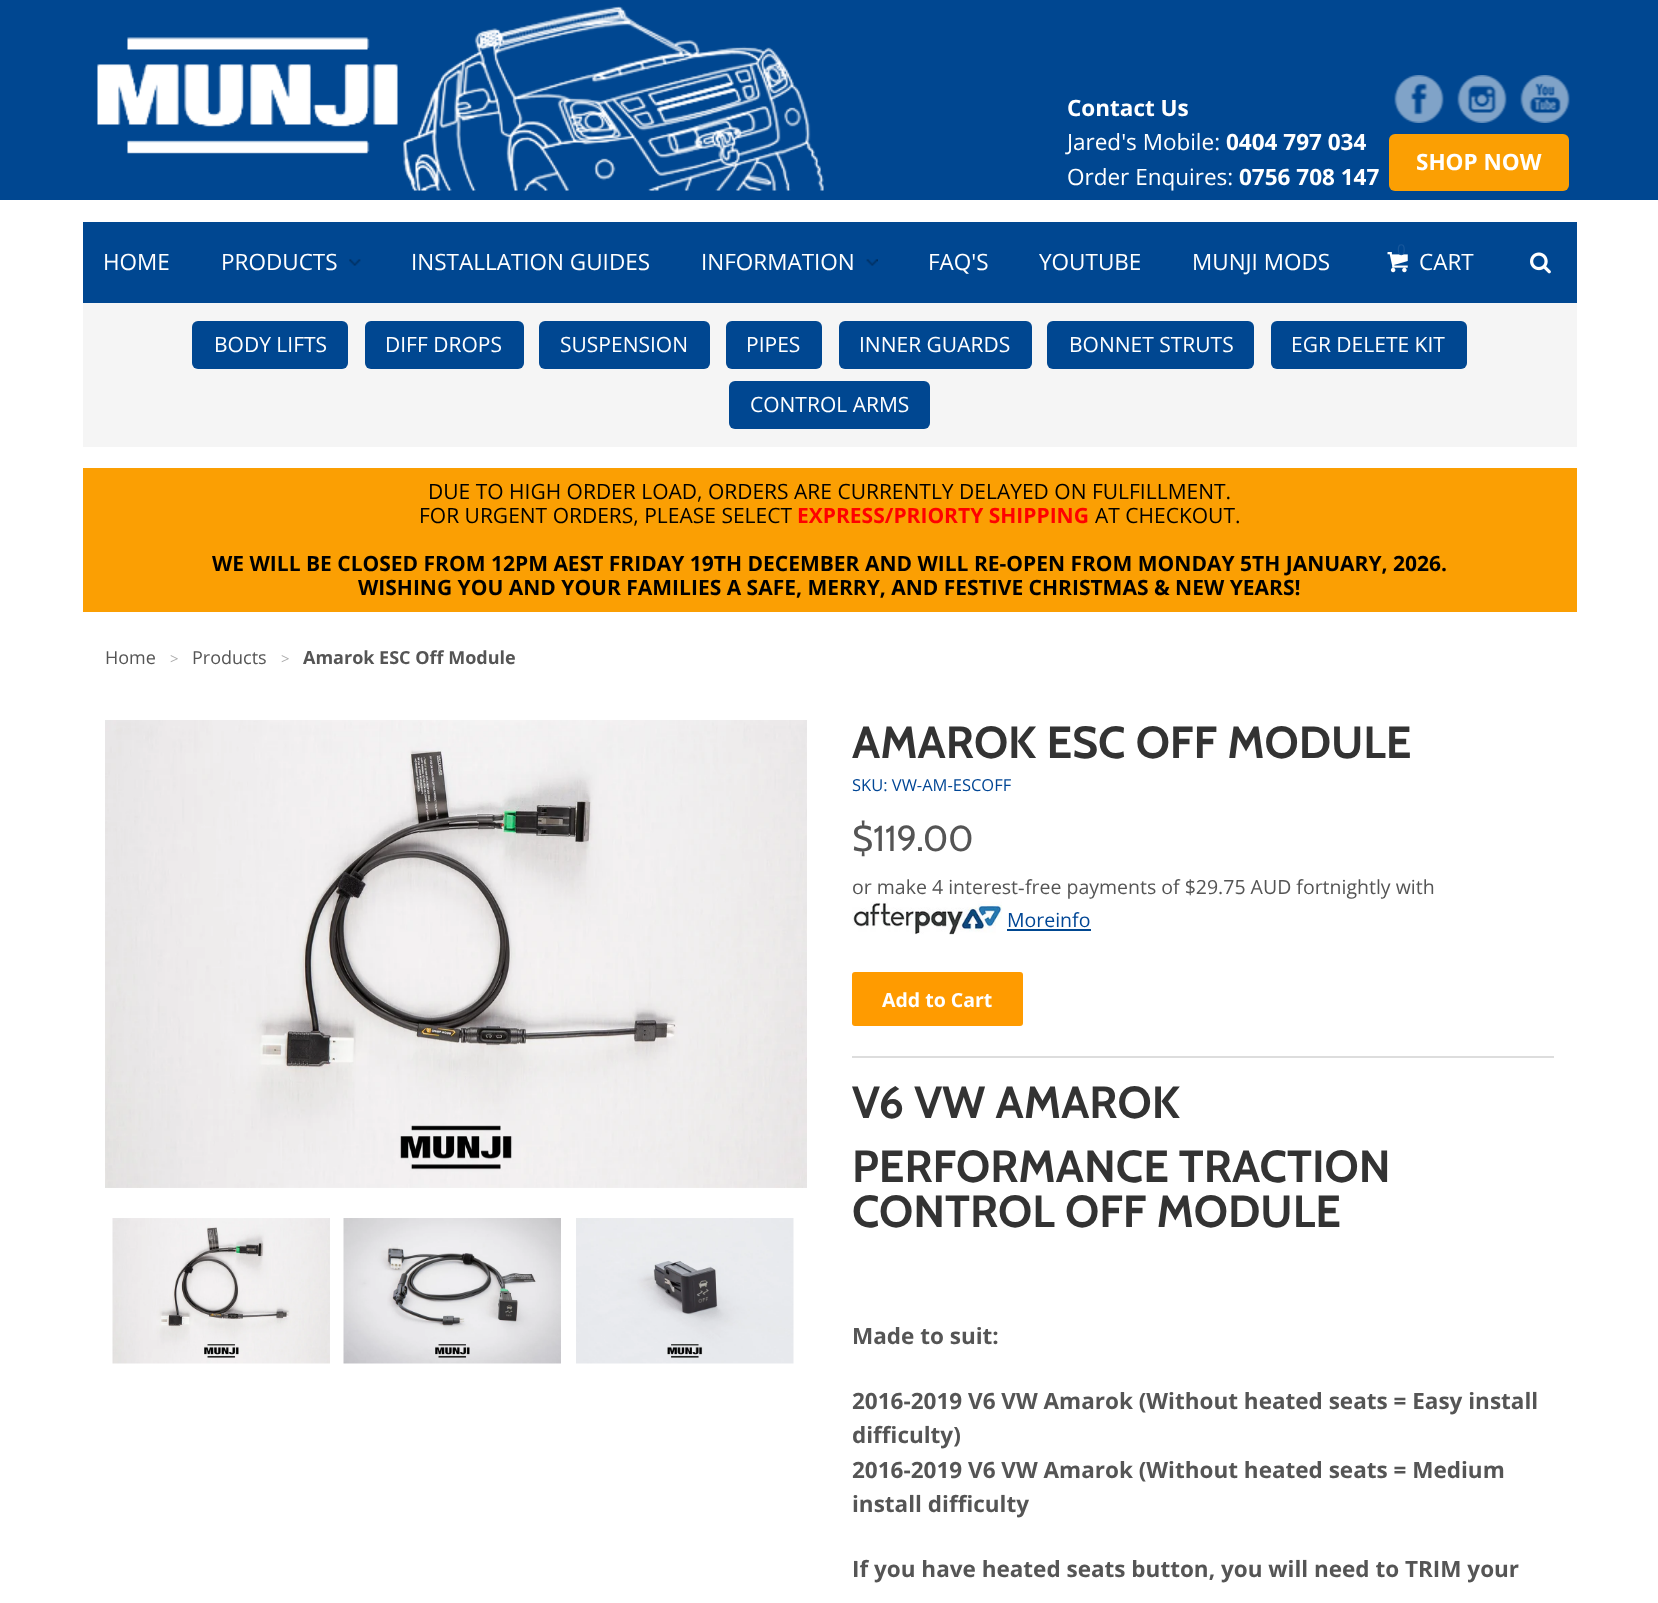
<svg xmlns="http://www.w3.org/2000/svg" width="1658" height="1603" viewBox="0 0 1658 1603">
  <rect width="100%" height="100%" fill="rgb(255,255,255)"/>
  <rect x="0" y="0" width="1658" height="200" fill="rgb(0,71,145)"/>
  <image x="97" y="6" width="727" height="185" href="pic1.png"/>
  <text x="1067" y="116" font-family="Open Sans" font-size="22.5" font-weight="bold" fill="rgb(255,255,255)">Contact Us</text>
  <text x="1067" y="150" font-family="Open Sans" font-size="22.5" fill="rgb(255,255,255)">Jared's Mobile:</text>
  <text x="1226" y="150" font-family="Open Sans" font-size="22.5" font-weight="bold" fill="rgb(255,255,255)">0404 797 034</text>
  <text x="1067" y="185" font-family="Open Sans" font-size="22.5" fill="rgb(255,255,255)">Order Enquires:</text>
  <text x="1239" y="185" font-family="Open Sans" font-size="22.5" font-weight="bold" fill="rgb(255,255,255)">0756 708 147</text>
  <image x="1394" y="75" width="50" height="48" href="pic2.png"/>
  <image x="1457" y="75" width="50" height="48" href="pic3.png"/>
  <image x="1520" y="75" width="50" height="48" href="pic4.png"/>
  <rect x="1389" y="134" width="180" height="57" rx="6" fill="rgb(251,159,3)"/>
  <text x="1416" y="170" font-family="Open Sans" font-size="22.5" font-weight="bold" fill="rgb(255,255,255)">SHOP NOW</text>
  <rect x="83" y="222" width="1494" height="81" fill="rgb(0,71,145)"/>
  <text x="103" y="270" font-family="Open Sans" font-size="22.5" fill="rgb(255,255,255)">HOME</text>
  <image x="349" y="259" width="12" height="7" href="pic5.png"/>
  <g font-family="Open Sans" font-size="22.5" fill="rgb(255,255,255)">
    <text x="221" y="270">PRODUCTS</text>
    <text x="411" y="270">INSTALLATION GUIDES</text>
  </g>
  <image x="866" y="259" width="12" height="7" href="pic6.png"/>
  <g font-family="Open Sans" font-size="22.5" fill="rgb(255,255,255)">
    <text x="701" y="270">INFORMATION</text>
    <text x="928" y="270">FAQ'S</text>
    <text x="1039" y="270">YOUTUBE</text>
    <text x="1192" y="270">MUNJI MODS</text>
  </g>
  <image x="1387" y="252" width="21" height="21" href="pic7.png"/>
  <text x="1397" y="255" font-family="Open Sans" font-size="15" fill="rgb(23,87,155)">0</text>
  <text x="1419" y="270" font-family="Open Sans" font-size="22.5" fill="rgb(255,255,255)">CART</text>
  <image x="1530" y="252" width="21" height="22" href="pic8.png"/>
  <rect x="83" y="303" width="1494" height="144" fill="rgb(245,245,245)"/>
  <rect x="192" y="321" width="156" height="48" rx="6" fill="rgb(0,71,145)"/>
  <text x="214" y="352" font-family="Open Sans" font-size="21" fill="rgb(255,255,255)">BODY LIFTS</text>
  <rect x="365" y="321" width="159" height="48" rx="6" fill="rgb(0,71,145)"/>
  <text x="385" y="352" font-family="Open Sans" font-size="21" fill="rgb(255,255,255)">DIFF DROPS</text>
  <rect x="539" y="321" width="171" height="48" rx="6" fill="rgb(0,71,145)"/>
  <text x="560" y="352" font-family="Open Sans" font-size="21" fill="rgb(255,255,255)">SUSPENSION</text>
  <rect x="726" y="321" width="96" height="48" rx="6" fill="rgb(0,71,145)"/>
  <text x="746" y="352" font-family="Open Sans" font-size="21" fill="rgb(255,255,255)">PIPES</text>
  <rect x="839" y="321" width="193" height="48" rx="6" fill="rgb(0,71,145)"/>
  <text x="859" y="352" font-family="Open Sans" font-size="21" fill="rgb(255,255,255)">INNER GUARDS</text>
  <rect x="1047" y="321" width="207" height="48" rx="6" fill="rgb(0,71,145)"/>
  <text x="1069" y="352" font-family="Open Sans" font-size="21" fill="rgb(255,255,255)">BONNET STRUTS</text>
  <rect x="1271" y="321" width="196" height="48" rx="6" fill="rgb(0,71,145)"/>
  <text x="1291" y="352" font-family="Open Sans" font-size="21" fill="rgb(255,255,255)">EGR DELETE KIT</text>
  <rect x="729" y="381" width="201" height="48" rx="6" fill="rgb(0,71,145)"/>
  <text x="750" y="412" font-family="Open Sans" font-size="21" fill="rgb(255,255,255)">CONTROL ARMS</text>
  <rect x="83" y="468" width="1494" height="144" fill="rgb(251,159,3)"/>
  <g font-family="Open Sans" font-size="21" fill="rgb(0,0,0)">
    <text x="428" y="499">DUE TO HIGH ORDER LOAD, ORDERS ARE CURRENTLY DELAYED ON FULFILLMENT.</text>
    <text x="419" y="523">FOR URGENT ORDERS, PLEASE SELECT</text>
  </g>
  <text x="797" y="523" font-family="Open Sans" font-size="21" font-weight="bold" fill="rgb(255,0,0)">EXPRESS/PRIORTY SHIPPING</text>
  <text x="1095" y="523" font-family="Open Sans" font-size="21" fill="rgb(0,0,0)">AT CHECKOUT.</text>
  <g font-family="Open Sans" font-size="21" font-weight="bold" fill="rgb(0,0,0)">
    <text x="212" y="571">WE WILL BE CLOSED FROM 12PM AEST FRIDAY 19TH DECEMBER AND WILL RE-OPEN FROM MONDAY 5TH JANUARY, 2026.</text>
    <text x="358" y="595">WISHING YOU AND YOUR FAMILIES A SAFE, MERRY, AND FESTIVE CHRISTMAS &amp; NEW YEARS!</text>
  </g>
  <text x="105" y="664" font-family="Open Sans" font-size="18" fill="rgb(85,85,85)">Home</text>
  <text x="170" y="664" font-family="Open Sans" font-size="15" fill="rgb(170,170,170)">&gt;</text>
  <text x="192" y="664" font-family="Open Sans" font-size="18" fill="rgb(85,85,85)">Products</text>
  <text x="281" y="664" font-family="Open Sans" font-size="15" fill="rgb(170,170,170)">&gt;</text>
  <text x="303" y="664" font-family="Open Sans" font-size="18" font-weight="bold" fill="rgb(85,85,85)">Amarok ESC Off Module</text>
  <image x="105" y="720" width="702" height="468" href="pic9.png"/>
  <image x="112" y="1218" width="218" height="146" href="pic10.png"/>
  <image x="343" y="1218" width="218" height="146" href="pic11.png"/>
  <image x="576" y="1218" width="218" height="146" href="pic12.png"/>
  <text x="852" y="758" font-family="Cabin" font-size="45" font-weight="bold" fill="rgb(51,51,51)">AMAROK ESC OFF MODULE</text>
  <text x="852" y="791" font-family="Open Sans" font-size="16.5" fill="rgb(0,70,149)">SKU: VW-AM-ESCOFF</text>
  <text x="852" y="851" font-family="Cabin" font-size="36" fill="rgb(85,85,85)">$119.00</text>
  <text x="852" y="894" font-family="Open Sans" font-size="19.5" fill="rgb(85,85,85)">or make 4 interest</text>
  <text x="1018" y="894" font-family="Liberation Serif" font-size="19.5" fill="rgb(85,85,85)">‐</text>
  <text x="1025" y="894" font-family="Open Sans" font-size="19.5" fill="rgb(85,85,85)">free payments of $29.75 AUD fortnightly with</text>
  <image x="852" y="901" width="150" height="34" href="pic13.png"/>
  <text x="1007" y="927" font-family="Open Sans" font-size="19.5" fill="rgb(0,70,149)">Moreinfo</text>
  <rect x="1007" y="929" width="84" height="2" fill="rgb(0,71,145)"/>
  <rect x="852" y="1056" width="702" height="2" fill="rgb(221,221,221)"/>
  <rect x="852" y="972" width="171" height="54" rx="3" fill="rgb(255,155,0)"/>
  <text x="882" y="1007" font-family="Open Sans" font-size="19.5" font-weight="bold" fill="rgb(255,255,255)">Add to Cart</text>
  <g font-family="Cabin" font-size="45" font-weight="bold" fill="rgb(51,51,51)">
    <text>
      <tspan x="852" y="1118">V6 VW AMAROK</tspan>
      <tspan x="852" y="1182">PERFORMANCE TRACTION</tspan>
      <tspan x="852" y="1227">CONTROL OFF MODULE</tspan>
    </text>
  </g>
  <g font-family="Open Sans" font-size="22.5" font-weight="bold" fill="rgb(85,85,85)">
    <text x="852" y="1344">Made to suit:</text>
    <text>
      <tspan x="852" y="1409">2016-2019 V6 VW Amarok (Without heated seats = Easy install</tspan>
      <tspan x="852" y="1443">difficulty)</tspan>
      <tspan x="852" y="1478">2016-2019 V6 VW Amarok (Without heated seats = Medium</tspan>
      <tspan x="852" y="1512">install difficulty</tspan>
    </text>
    <text x="852" y="1577">If you have heated seats button, you will need to TRIM your</text>
  </g>
</svg>
